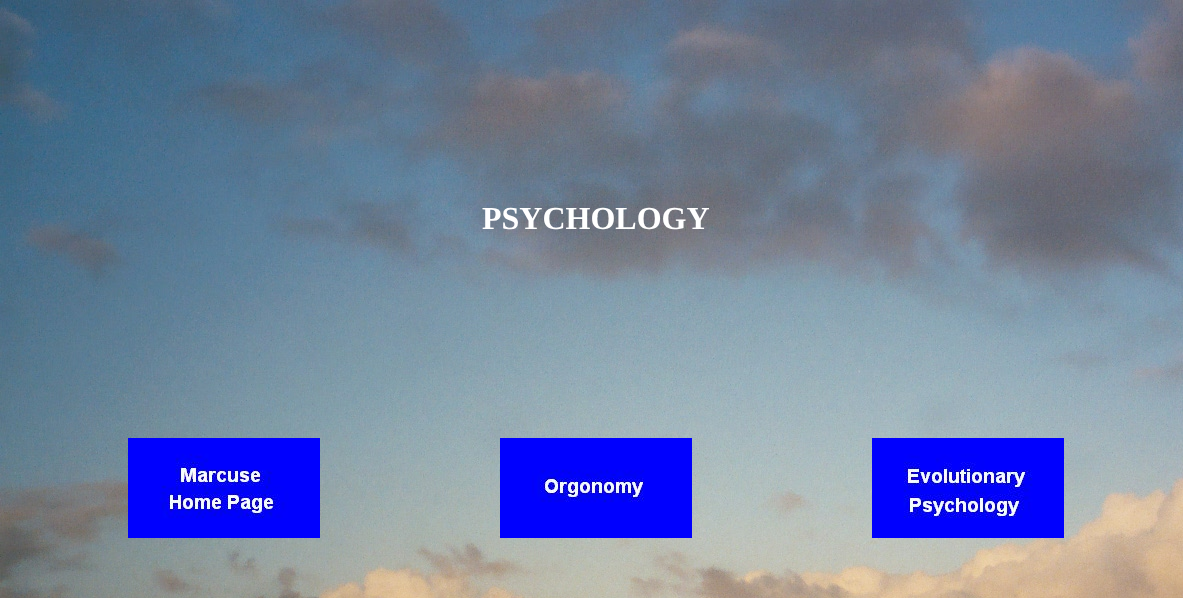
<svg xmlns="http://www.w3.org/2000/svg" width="1183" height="598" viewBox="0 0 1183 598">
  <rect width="100%" height="100%" fill="rgb(255,255,255)"/>
  <image x="0" y="0" width="1183" height="598" href="pic1.png"/>
  <text x="482" y="229" font-family="Liberation Serif" font-size="32" font-weight="bold" fill="rgb(255,255,255)">PSYCHOLOGY</text>
  <image x="128" y="438" width="192" height="100" href="pic2.png"/>
  <image x="500" y="438" width="192" height="100" href="pic3.png"/>
  <image x="872" y="438" width="192" height="100" href="pic4.png"/>
</svg>
